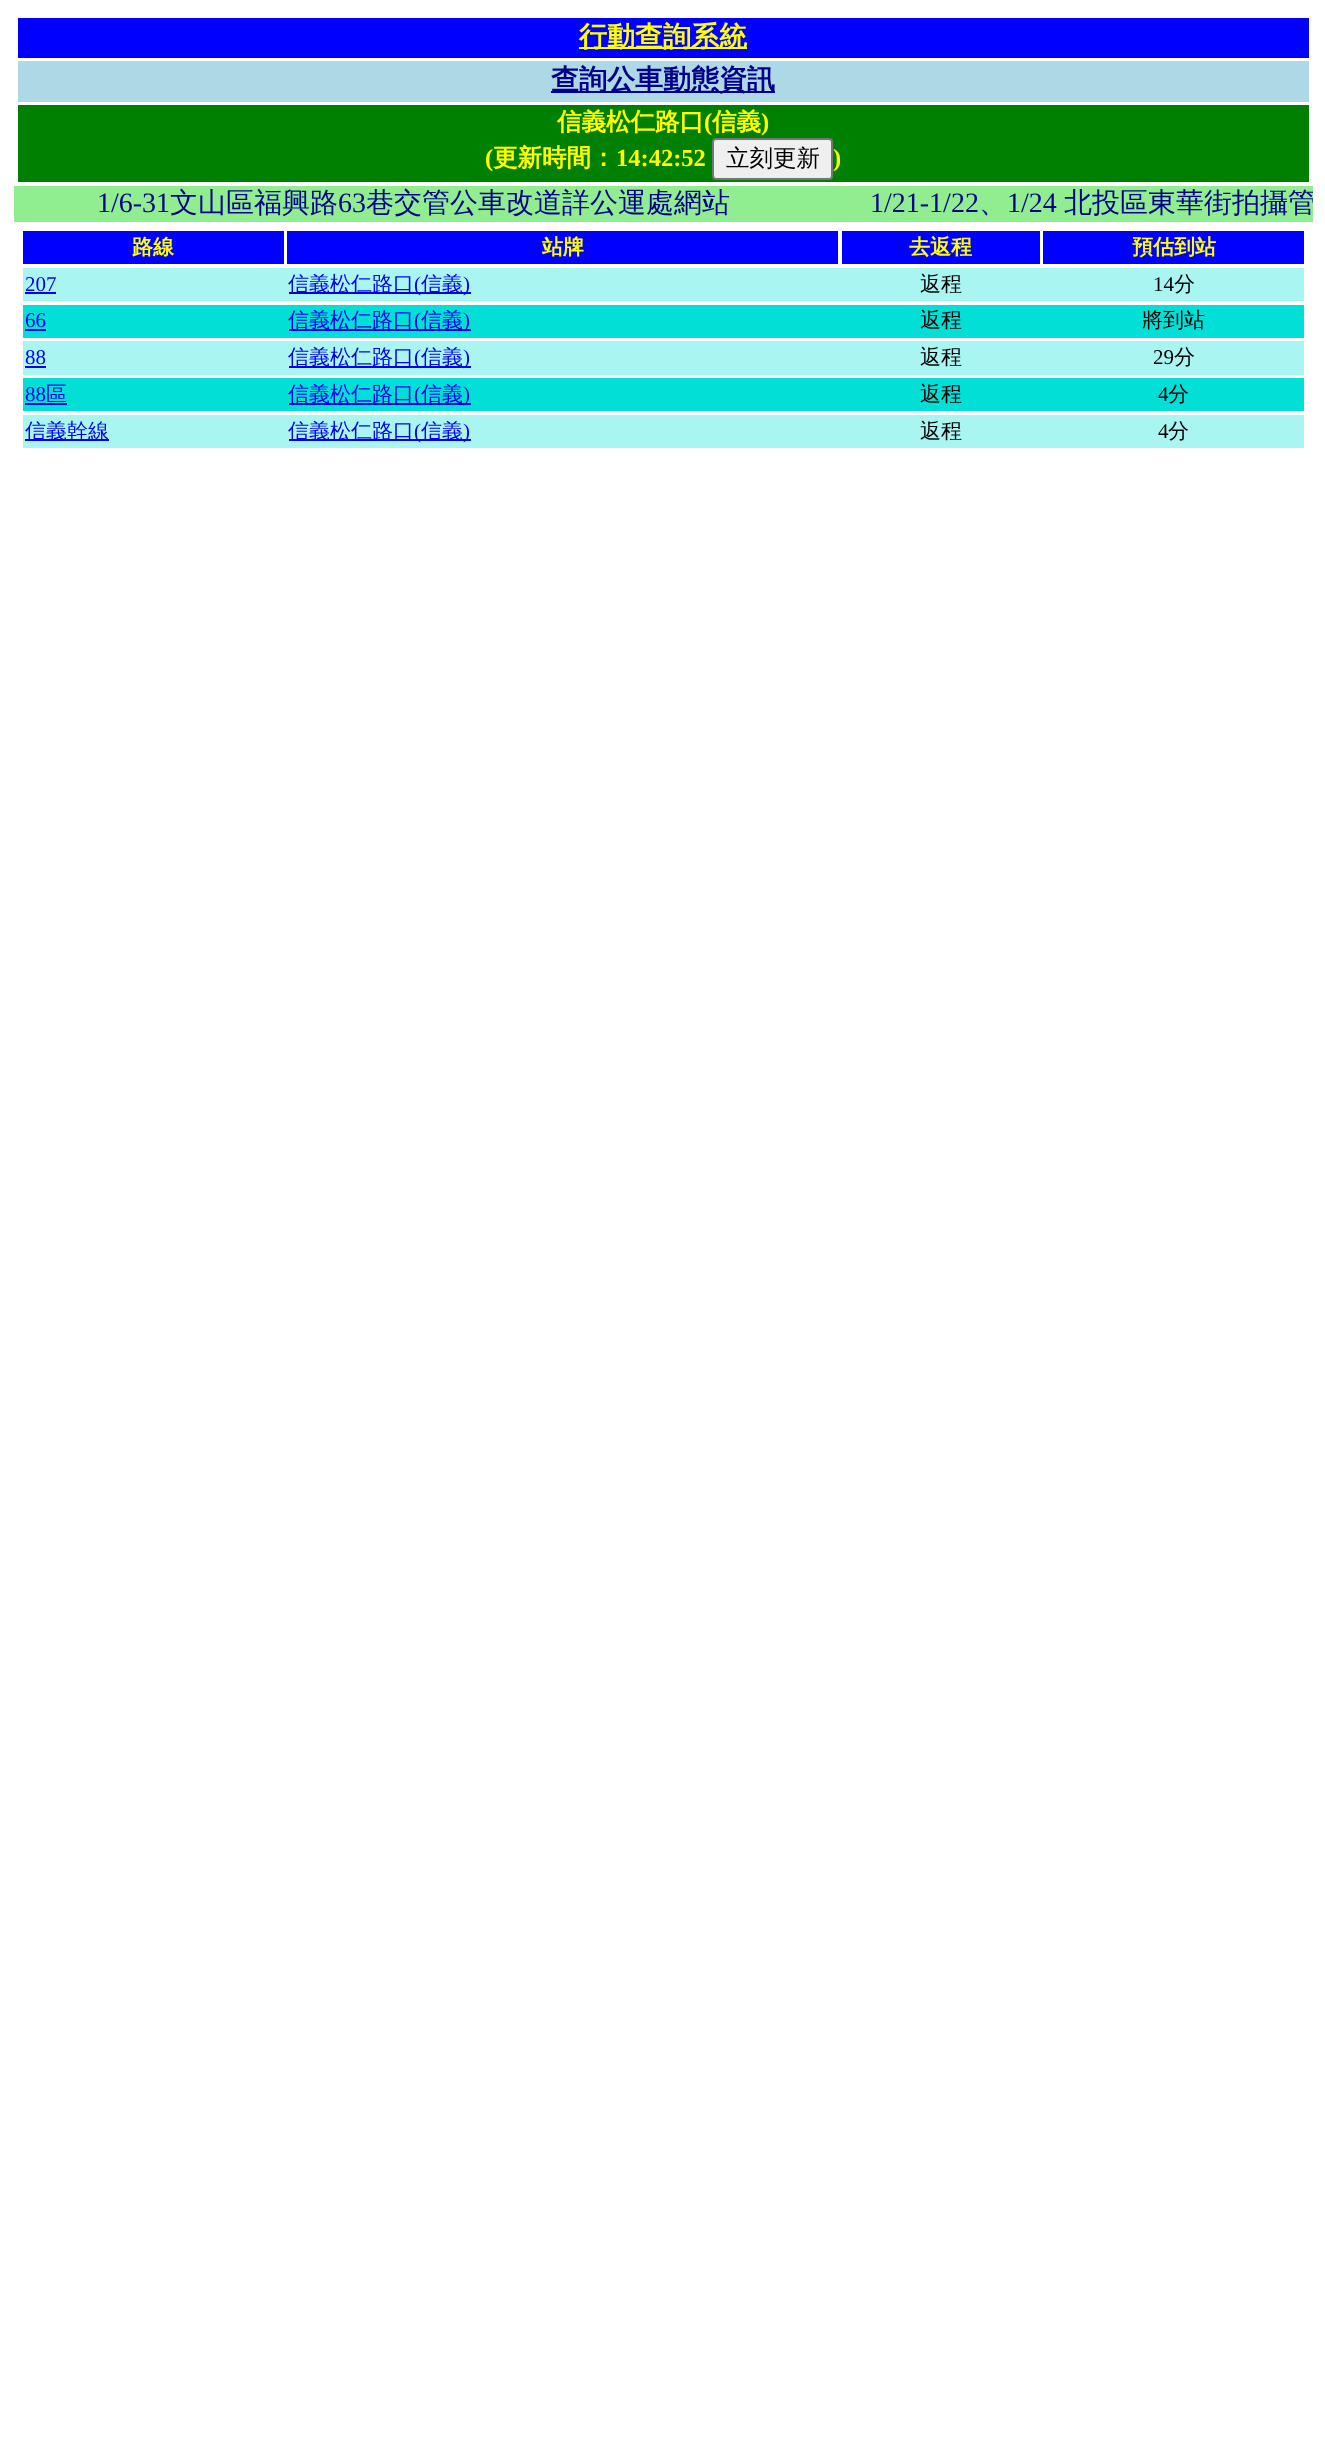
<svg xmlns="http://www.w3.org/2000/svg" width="1325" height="2463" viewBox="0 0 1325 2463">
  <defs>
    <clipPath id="clip1"><rect x="14" y="186" width="1299" height="36"/></clipPath>
  </defs>
  <rect width="100%" height="100%" fill="rgb(255,255,255)"/>
  <rect x="18" y="18" width="1291" height="40" fill="rgb(0,0,255)"/>
  <rect x="579" y="47" width="168" height="2" fill="rgb(255,255,0)"/>
  <text x="579" y="46" font-family="WenQuanYi Zen Hei" font-size="28" font-weight="bold" fill="rgb(255,255,0)">行動查詢系統</text>
  <rect x="18" y="61" width="1291" height="41" fill="rgb(173,216,230)"/>
  <rect x="551" y="91" width="224" height="2" fill="rgb(0,0,139)"/>
  <text x="551" y="89" font-family="WenQuanYi Zen Hei" font-size="28" font-weight="bold" fill="rgb(0,0,139)">查詢公車動態資訊</text>
  <rect x="18" y="105" width="1291" height="77" fill="rgb(0,128,0)"/>
  <text x="557" y="130" font-family="WenQuanYi Zen Hei" font-size="24.5" font-weight="bold" fill="rgb(255,255,0)">信義松仁路口</text>
  <text x="704" y="130" font-family="Liberation Serif" font-size="24.5" font-weight="bold" fill="rgb(255,255,0)">(</text>
  <text x="712" y="130" font-family="WenQuanYi Zen Hei" font-size="24.5" font-weight="bold" fill="rgb(255,255,0)">信義</text>
  <g font-family="Liberation Serif" font-size="24.5" font-weight="bold" fill="rgb(255,255,0)">
    <text x="761" y="130">)</text>
    <text x="485" y="166">(</text>
  </g>
  <text x="493" y="166" font-family="WenQuanYi Zen Hei" font-size="24.5" font-weight="bold" fill="rgb(255,255,0)">更新時間：</text>
  <text x="616" y="166" font-family="Liberation Serif" font-size="24.5" font-weight="bold" fill="rgb(255,255,0)">14:42:52</text>
  <rect x="713" y="139" width="119" height="40" rx="3" fill="rgb(239,239,239)" stroke="rgb(118,118,118)" stroke-width="2"/>
  <text x="726" y="166" font-family="WenQuanYi Zen Hei" font-size="23.5" font-weight="500" fill="rgb(0,0,0)">立刻更新</text>
  <text x="833" y="166" font-family="Liberation Serif" font-size="24.5" font-weight="bold" fill="rgb(255,255,0)">)</text>
  <rect x="14" y="186" width="1299" height="36" fill="rgb(144,238,144)"/>
  <text x="97" y="212" font-family="Liberation Serif" font-size="28" fill="rgb(0,0,139)">1/6-31</text>
  <text x="170" y="212" font-family="WenQuanYi Zen Hei" font-size="28" font-weight="500" fill="rgb(0,0,139)">文山區福興路</text>
  <text x="338" y="212" font-family="Liberation Serif" font-size="28" fill="rgb(0,0,139)">63</text>
  <text x="366" y="212" font-family="WenQuanYi Zen Hei" font-size="28" font-weight="500" fill="rgb(0,0,139)">巷交管公車改道詳公運處網站</text>
  <text x="870" y="212" font-family="Liberation Serif" font-size="28" fill="rgb(0,0,139)">1/21-1/22</text>
  <text x="979" y="212" font-family="WenQuanYi Zen Hei" font-size="28" font-weight="500" fill="rgb(0,0,139)">、</text>
  <text x="1007" y="212" font-family="Liberation Serif" font-size="28" fill="rgb(0,0,139)">1/24</text>
  <g clip-path="url(#clip1)">
    <text x="1064" y="212" font-family="WenQuanYi Zen Hei" font-size="28" font-weight="500" fill="rgb(0,0,139)">北投區東華街拍攝管</text>
  </g>
  <rect x="23" y="231" width="261" height="33" fill="rgb(0,0,255)"/>
  <text x="132" y="254" font-family="WenQuanYi Zen Hei" font-size="21" font-weight="bold" fill="rgb(255,255,0)">路線</text>
  <rect x="287" y="231" width="551" height="33" fill="rgb(0,0,255)"/>
  <text x="542" y="254" font-family="WenQuanYi Zen Hei" font-size="21" font-weight="bold" fill="rgb(255,255,0)">站牌</text>
  <rect x="842" y="231" width="198" height="33" fill="rgb(0,0,255)"/>
  <text x="909" y="254" font-family="WenQuanYi Zen Hei" font-size="21" font-weight="bold" fill="rgb(255,255,0)">去返程</text>
  <rect x="1043" y="231" width="261" height="33" fill="rgb(0,0,255)"/>
  <text x="1132" y="254" font-family="WenQuanYi Zen Hei" font-size="21" font-weight="bold" fill="rgb(255,255,0)">預估到站</text>
  <rect x="23" y="268" width="1281" height="33" fill="rgb(169,245,242)"/>
  <text x="25" y="291" font-family="Liberation Serif" font-size="21" fill="rgb(0,0,238)">207</text>
  <rect x="25" y="292" width="31" height="2" fill="rgb(0,0,238)"/>
  <rect x="289" y="292" width="182" height="2" fill="rgb(0,0,238)"/>
  <text x="288" y="291" font-family="WenQuanYi Zen Hei" font-size="21" font-weight="500" fill="rgb(0,0,238)">信義松仁路口</text>
  <text x="414" y="291" font-family="Liberation Serif" font-size="21" fill="rgb(0,0,238)">(</text>
  <text x="421" y="291" font-family="WenQuanYi Zen Hei" font-size="21" font-weight="500" fill="rgb(0,0,238)">信義</text>
  <text x="463" y="291" font-family="Liberation Serif" font-size="21" fill="rgb(0,0,238)">)</text>
  <text x="920" y="291" font-family="WenQuanYi Zen Hei" font-size="21" font-weight="500" fill="rgb(0,0,0)">返程</text>
  <text x="1153" y="291" font-family="Liberation Serif" font-size="21" fill="rgb(0,0,0)">14</text>
  <text x="1174" y="291" font-family="WenQuanYi Zen Hei" font-size="21" font-weight="500" fill="rgb(0,0,0)">分</text>
  <rect x="23" y="305" width="1281" height="33" fill="rgb(1,223,215)"/>
  <text x="25" y="327" font-family="Liberation Serif" font-size="21" fill="rgb(0,0,238)">66</text>
  <rect x="25" y="329" width="21" height="2" fill="rgb(0,0,238)"/>
  <rect x="289" y="329" width="182" height="2" fill="rgb(0,0,238)"/>
  <text x="288" y="327" font-family="WenQuanYi Zen Hei" font-size="21" font-weight="500" fill="rgb(0,0,238)">信義松仁路口</text>
  <text x="414" y="327" font-family="Liberation Serif" font-size="21" fill="rgb(0,0,238)">(</text>
  <text x="421" y="327" font-family="WenQuanYi Zen Hei" font-size="21" font-weight="500" fill="rgb(0,0,238)">信義</text>
  <text x="463" y="327" font-family="Liberation Serif" font-size="21" fill="rgb(0,0,238)">)</text>
  <g font-family="WenQuanYi Zen Hei" font-size="21" font-weight="500" fill="rgb(0,0,0)">
    <text x="920" y="327">返程</text>
    <text x="1142" y="327">將到站</text>
  </g>
  <rect x="23" y="341" width="1281" height="34" fill="rgb(169,245,242)"/>
  <text x="25" y="364" font-family="Liberation Serif" font-size="21" fill="rgb(0,0,238)">88</text>
  <rect x="25" y="366" width="21" height="2" fill="rgb(0,0,238)"/>
  <rect x="289" y="366" width="182" height="2" fill="rgb(0,0,238)"/>
  <text x="288" y="364" font-family="WenQuanYi Zen Hei" font-size="21" font-weight="500" fill="rgb(0,0,238)">信義松仁路口</text>
  <text x="414" y="364" font-family="Liberation Serif" font-size="21" fill="rgb(0,0,238)">(</text>
  <text x="421" y="364" font-family="WenQuanYi Zen Hei" font-size="21" font-weight="500" fill="rgb(0,0,238)">信義</text>
  <text x="463" y="364" font-family="Liberation Serif" font-size="21" fill="rgb(0,0,238)">)</text>
  <text x="920" y="364" font-family="WenQuanYi Zen Hei" font-size="21" font-weight="500" fill="rgb(0,0,0)">返程</text>
  <text x="1153" y="364" font-family="Liberation Serif" font-size="21" fill="rgb(0,0,0)">29</text>
  <text x="1174" y="364" font-family="WenQuanYi Zen Hei" font-size="21" font-weight="500" fill="rgb(0,0,0)">分</text>
  <rect x="23" y="378" width="1281" height="33" fill="rgb(1,223,215)"/>
  <text x="25" y="401" font-family="Liberation Serif" font-size="21" fill="rgb(0,0,238)">88</text>
  <rect x="25" y="403" width="42" height="2" fill="rgb(0,0,238)"/>
  <text x="46" y="401" font-family="WenQuanYi Zen Hei" font-size="21" font-weight="500" fill="rgb(0,0,238)">區</text>
  <rect x="289" y="403" width="182" height="2" fill="rgb(0,0,238)"/>
  <text x="288" y="401" font-family="WenQuanYi Zen Hei" font-size="21" font-weight="500" fill="rgb(0,0,238)">信義松仁路口</text>
  <text x="414" y="401" font-family="Liberation Serif" font-size="21" fill="rgb(0,0,238)">(</text>
  <text x="421" y="401" font-family="WenQuanYi Zen Hei" font-size="21" font-weight="500" fill="rgb(0,0,238)">信義</text>
  <text x="463" y="401" font-family="Liberation Serif" font-size="21" fill="rgb(0,0,238)">)</text>
  <text x="920" y="401" font-family="WenQuanYi Zen Hei" font-size="21" font-weight="500" fill="rgb(0,0,0)">返程</text>
  <text x="1158" y="401" font-family="Liberation Serif" font-size="21" fill="rgb(0,0,0)">4</text>
  <text x="1168" y="401" font-family="WenQuanYi Zen Hei" font-size="21" font-weight="500" fill="rgb(0,0,0)">分</text>
  <rect x="23" y="415" width="1281" height="33" fill="rgb(169,245,242)"/>
  <rect x="25" y="439" width="84" height="2" fill="rgb(0,0,238)"/>
  <text x="25" y="438" font-family="WenQuanYi Zen Hei" font-size="21" font-weight="500" fill="rgb(0,0,238)">信義幹線</text>
  <rect x="289" y="439" width="182" height="2" fill="rgb(0,0,238)"/>
  <text x="288" y="438" font-family="WenQuanYi Zen Hei" font-size="21" font-weight="500" fill="rgb(0,0,238)">信義松仁路口</text>
  <text x="414" y="438" font-family="Liberation Serif" font-size="21" fill="rgb(0,0,238)">(</text>
  <text x="421" y="438" font-family="WenQuanYi Zen Hei" font-size="21" font-weight="500" fill="rgb(0,0,238)">信義</text>
  <text x="463" y="438" font-family="Liberation Serif" font-size="21" fill="rgb(0,0,238)">)</text>
  <text x="920" y="438" font-family="WenQuanYi Zen Hei" font-size="21" font-weight="500" fill="rgb(0,0,0)">返程</text>
  <text x="1158" y="438" font-family="Liberation Serif" font-size="21" fill="rgb(0,0,0)">4</text>
  <text x="1168" y="438" font-family="WenQuanYi Zen Hei" font-size="21" font-weight="500" fill="rgb(0,0,0)">分</text>
</svg>
